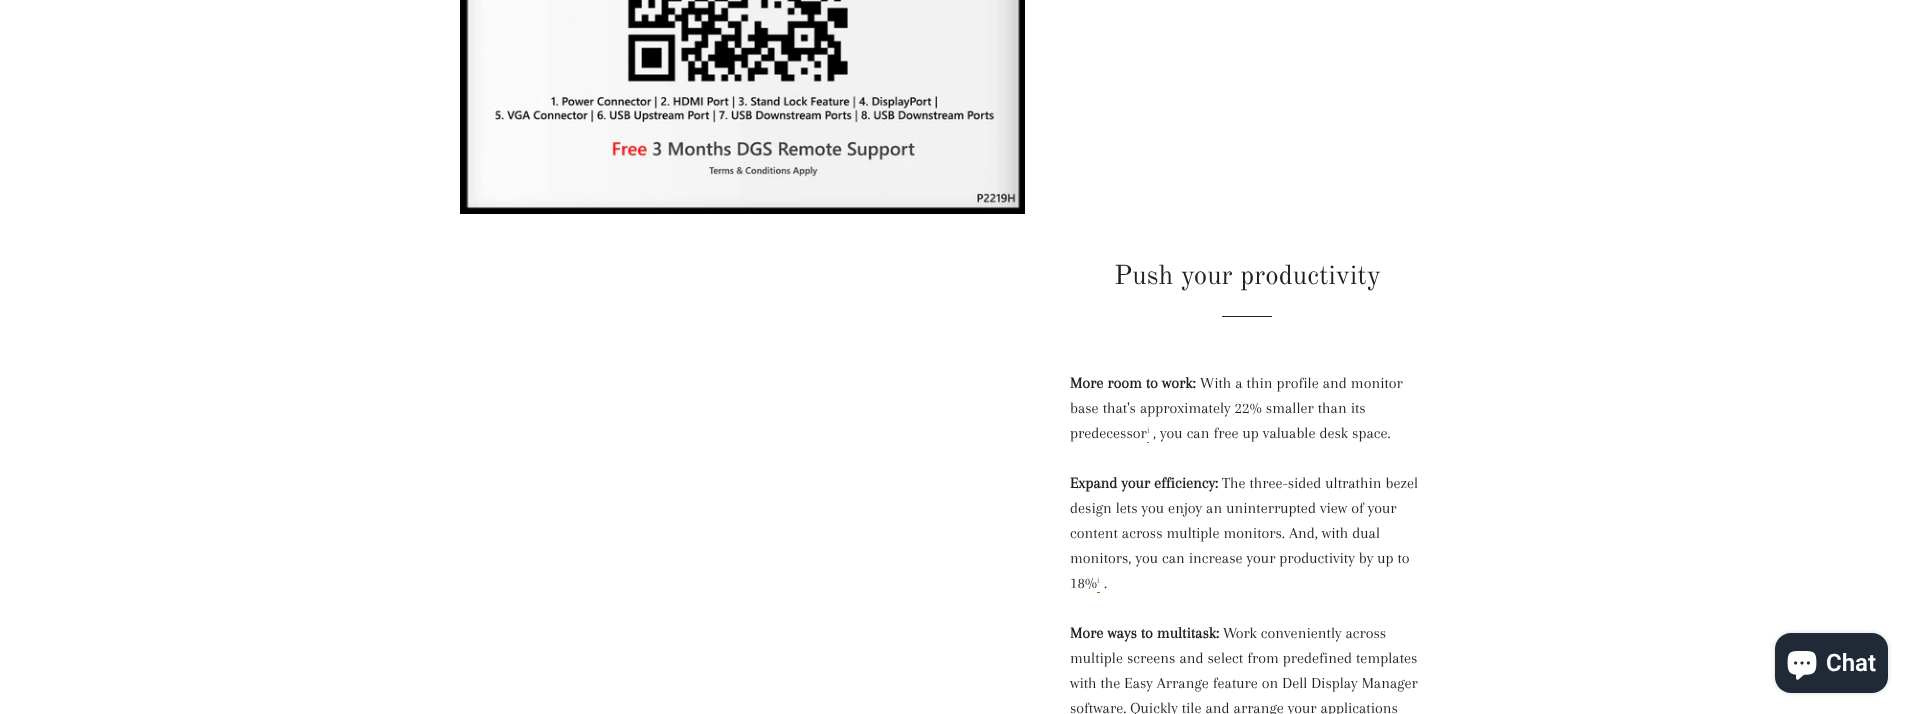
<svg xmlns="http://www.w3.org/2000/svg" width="1910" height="714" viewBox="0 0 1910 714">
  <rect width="100%" height="100%" fill="rgb(255,255,255)"/>
  <image x="460" y="0" width="565" height="214" href="pic1.png"/>
  <text x="1114" y="284" font-family="Old Standard TT" font-size="27" fill="rgb(31,32,33)">Push your productivity</text>
  <rect x="1222" y="316" width="50" height="1" fill="rgb(31,32,33)"/>
  <text x="1070" y="388" font-family="Arapey" font-size="16" font-weight="bold" fill="rgb(31,32,33)">More room to work:</text>
  <g font-family="Arapey" font-size="16" fill="rgb(31,32,33)">
    <text x="1200" y="388">With a thin profile and monitor</text>
    <text>
      <tspan x="1070" y="413">base that's approximately 22% smaller than its</tspan>
      <tspan x="1070" y="438">predecessor</tspan>
    </text>
  </g>
  <text x="1147" y="433" font-family="Arapey" font-size="9" fill="rgb(165,102,0)">i</text>
  <rect x="1147" y="442" width="2" height="1" fill="rgb(165,102,0)"/>
  <text x="1153" y="438" font-family="Arapey" font-size="16" fill="rgb(31,32,33)">, you can free up valuable desk space.</text>
  <text x="1070" y="488" font-family="Arapey" font-size="16" font-weight="bold" fill="rgb(31,32,33)">Expand your efficiency:</text>
  <g font-family="Arapey" font-size="16" fill="rgb(31,32,33)">
    <text x="1222" y="488">The three-sided ultrathin bezel</text>
    <text>
      <tspan x="1070" y="513">design lets you enjoy an uninterrupted view of your</tspan>
      <tspan x="1070" y="538">content across multiple monitors. And, with dual</tspan>
      <tspan x="1070" y="563">monitors, you can increase your productivity by up to</tspan>
      <tspan x="1070" y="588">18%</tspan>
    </text>
  </g>
  <text x="1097" y="583" font-family="Arapey" font-size="9" fill="rgb(165,102,0)">i</text>
  <rect x="1097" y="592" width="3" height="1" fill="rgb(165,102,0)"/>
  <text x="1104" y="588" font-family="Arapey" font-size="16" fill="rgb(31,32,33)">.</text>
  <text x="1070" y="638" font-family="Arapey" font-size="16" font-weight="bold" fill="rgb(31,32,33)">More ways to multitask:</text>
  <g font-family="Arapey" font-size="16" fill="rgb(31,32,33)">
    <text x="1223" y="638">Work conveniently across</text>
    <text>
      <tspan x="1070" y="663">multiple screens and select from predefined templates</tspan>
      <tspan x="1070" y="688">with the Easy Arrange feature on Dell Display Manager</tspan>
      <tspan x="1070" y="713">software. Quickly tile and arrange your applications</tspan>
    </text>
  </g>
  <rect x="1775" y="633" width="113" height="60" rx="16" fill="rgba(0,0,0,0.15)" filter="blur(2.5px)"/>
  <rect x="1775" y="633" width="113" height="60" rx="16" fill="rgb(32,42,54)"/>
  <image x="1787" y="651" width="30" height="29" href="pic2.png"/>
  <text x="1826" y="671" font-family="Roboto" font-size="24" font-weight="600" fill="rgb(255,255,255)">Chat</text>
</svg>
